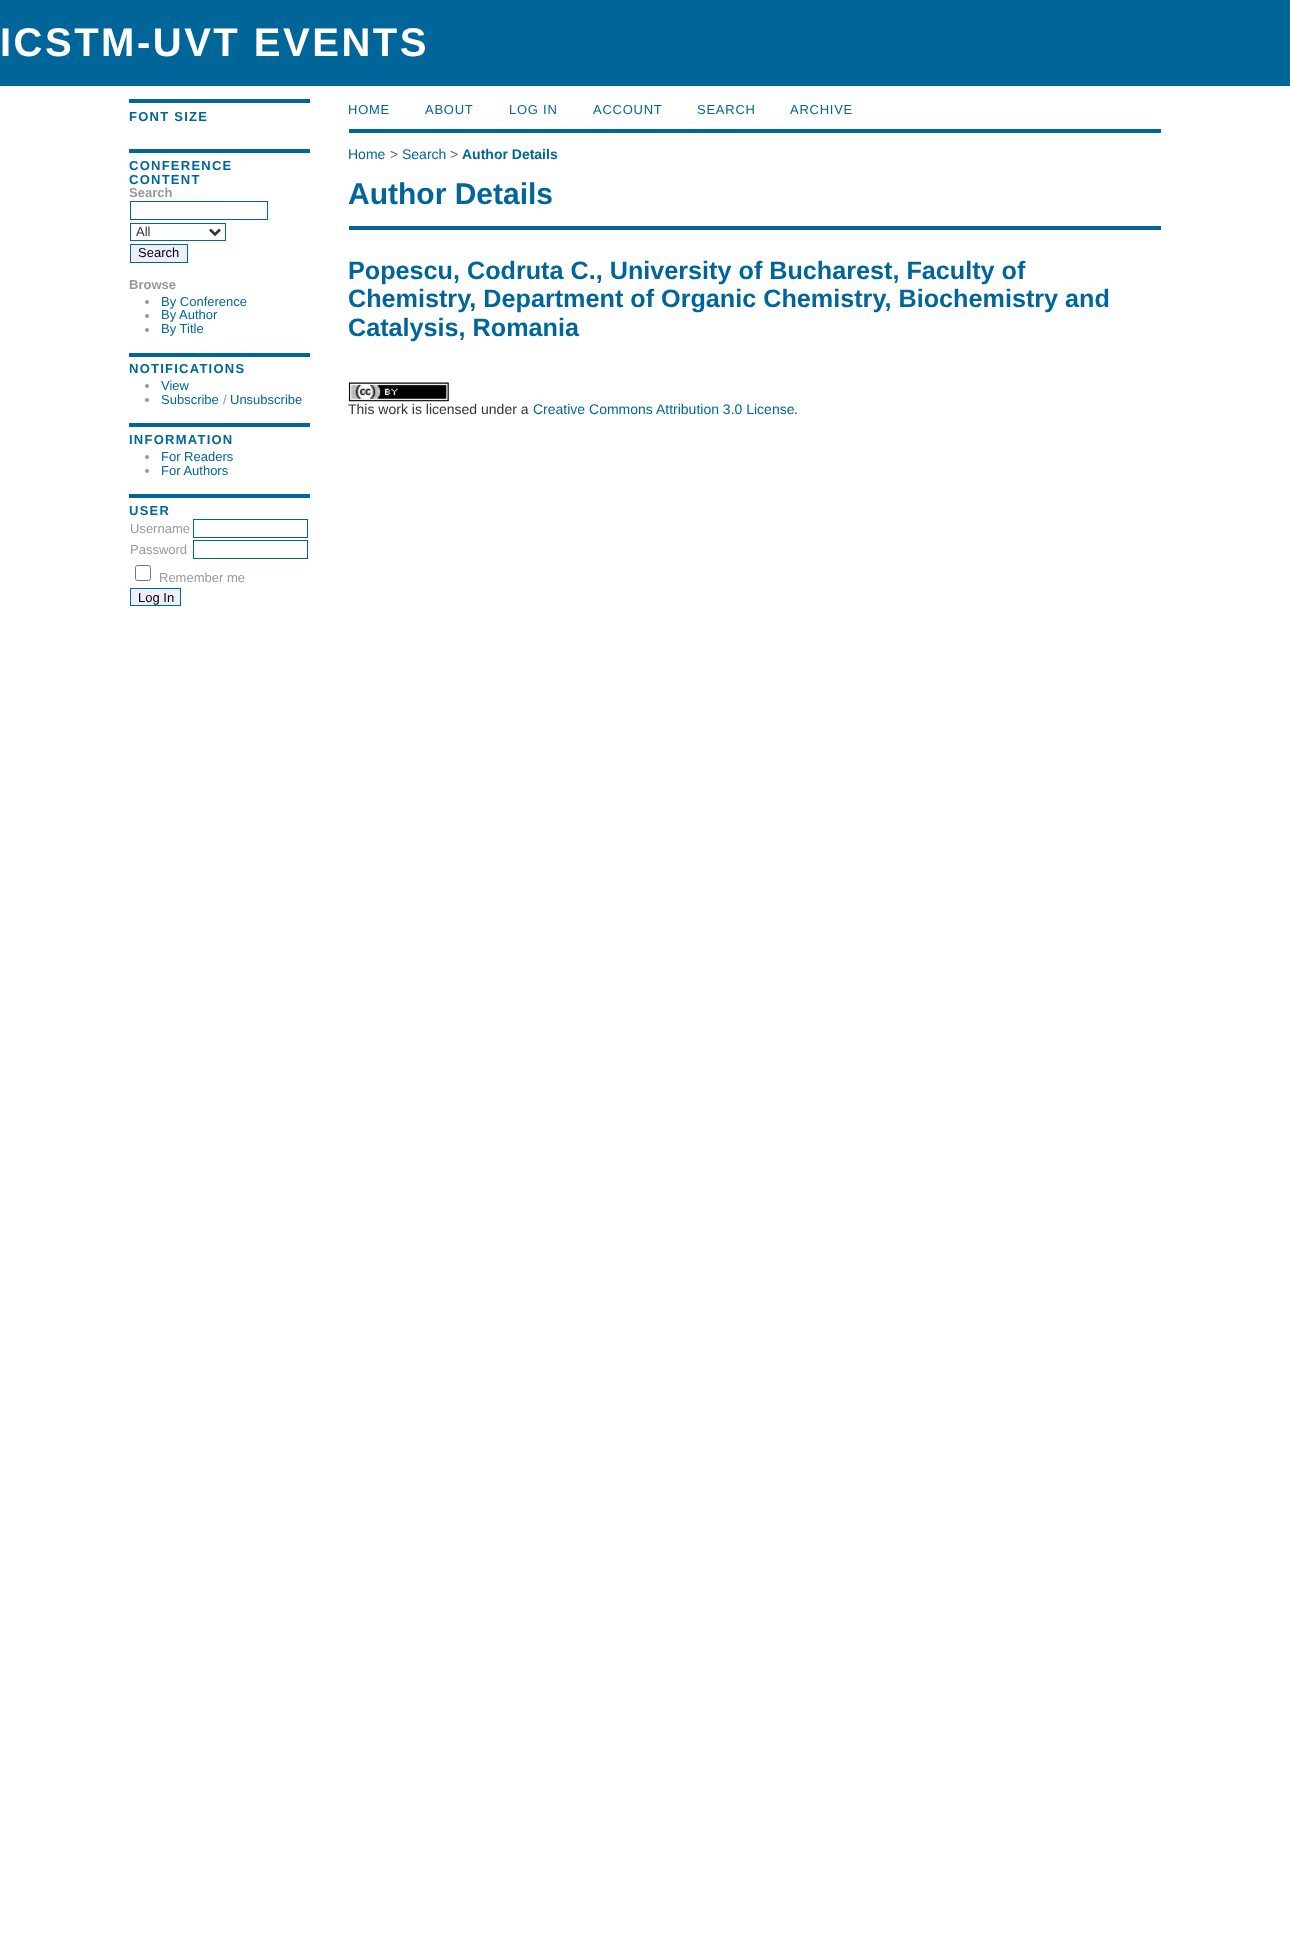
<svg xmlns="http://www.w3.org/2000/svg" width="1290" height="1940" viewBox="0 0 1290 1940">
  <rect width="100%" height="100%" fill="rgb(255,255,255)"/>
  <rect x="0" y="0" width="1290" height="86" fill="rgb(0,102,153)"/>
  <text x="0" y="56" font-family="Liberation Sans" font-size="40" font-weight="bold" letter-spacing="2.5" fill="rgb(255,255,255)">ICSTM-UVT EVENTS</text>
  <rect x="129" y="99" width="181" height="4" fill="rgb(0,102,153)"/>
  <text x="129" y="121" font-family="Liberation Sans" font-size="13" font-weight="bold" letter-spacing="1.25" fill="rgb(0,102,153)">FONT SIZE</text>
  <rect x="129" y="149" width="181" height="4" fill="rgb(0,102,153)"/>
  <g font-family="Liberation Sans" font-size="13" font-weight="bold" letter-spacing="1.25" fill="rgb(0,102,153)">
    <text>
      <tspan x="129" y="170">CONFERENCE</tspan>
      <tspan x="129" y="184">CONTENT</tspan>
    </text>
  </g>
  <text x="129" y="197" font-family="Liberation Sans" font-size="13" font-weight="bold" fill="rgb(153,153,153)">Search</text>
  <rect x="130.5" y="201.5" width="137" height="18" fill="none" stroke="rgb(0,102,153)"/>
  <rect x="130.5" y="223.5" width="95" height="17" fill="none" stroke="rgb(0,102,153)"/>
  <path d="M210 229.5L215 234.5L220 229.5" fill="none" stroke="rgb(51,51,51)" stroke-width="2.5"/>
  <text x="136" y="236" font-family="Liberation Sans" font-size="13" fill="rgb(51,51,51)">All</text>
  <rect x="130.5" y="244.5" width="57" height="18" fill="rgb(238,238,255)" stroke="rgb(0,102,153)"/>
  <text x="138" y="257" font-family="Liberation Sans" font-size="13" fill="rgb(0,0,0)">Search</text>
  <text x="129" y="289" font-family="Liberation Sans" font-size="13" font-weight="bold" fill="rgb(153,153,153)">Browse</text>
  <circle cx="147" cy="302" r="2" fill="rgb(153,153,153)"/>
  <text x="161" y="306" font-family="Liberation Sans" font-size="13" fill="rgb(0,102,153)">By Conference</text>
  <circle cx="147" cy="316" r="2" fill="rgb(153,153,153)"/>
  <text x="161" y="319" font-family="Liberation Sans" font-size="13" fill="rgb(0,102,153)">By Author</text>
  <circle cx="147" cy="330" r="2" fill="rgb(153,153,153)"/>
  <text x="161" y="333" font-family="Liberation Sans" font-size="13" fill="rgb(0,102,153)">By Title</text>
  <rect x="129" y="353" width="181" height="4" fill="rgb(0,102,153)"/>
  <text x="129" y="373" font-family="Liberation Sans" font-size="13" font-weight="bold" letter-spacing="1.25" fill="rgb(0,102,153)">NOTIFICATIONS</text>
  <circle cx="147" cy="386" r="2" fill="rgb(153,153,153)"/>
  <text x="161" y="390" font-family="Liberation Sans" font-size="13" fill="rgb(0,102,153)">View</text>
  <circle cx="147" cy="400" r="2" fill="rgb(153,153,153)"/>
  <text x="161" y="404" font-family="Liberation Sans" font-size="13" fill="rgb(0,102,153)">Subscribe</text>
  <text x="223" y="404" font-family="Liberation Sans" font-size="13" fill="rgb(153,153,153)">/</text>
  <text x="230" y="404" font-family="Liberation Sans" font-size="13" fill="rgb(0,102,153)">Unsubscribe</text>
  <rect x="129" y="423" width="181" height="4" fill="rgb(0,102,153)"/>
  <text x="129" y="444" font-family="Liberation Sans" font-size="13" font-weight="bold" letter-spacing="1.25" fill="rgb(0,102,153)">INFORMATION</text>
  <circle cx="147" cy="457" r="2" fill="rgb(153,153,153)"/>
  <text x="161" y="461" font-family="Liberation Sans" font-size="13" fill="rgb(0,102,153)">For Readers</text>
  <circle cx="147" cy="471" r="2" fill="rgb(153,153,153)"/>
  <text x="161" y="475" font-family="Liberation Sans" font-size="13" fill="rgb(0,102,153)">For Authors</text>
  <rect x="129" y="494" width="181" height="4" fill="rgb(0,102,153)"/>
  <text x="129" y="515" font-family="Liberation Sans" font-size="13" font-weight="bold" letter-spacing="1.25" fill="rgb(0,102,153)">USER</text>
  <text x="130" y="533" font-family="Liberation Sans" font-size="13" fill="rgb(153,153,153)">Username</text>
  <rect x="193.5" y="519.5" width="114" height="18" fill="none" stroke="rgb(0,102,153)"/>
  <text x="130" y="554" font-family="Liberation Sans" font-size="13" fill="rgb(153,153,153)">Password</text>
  <rect x="193.5" y="540.5" width="114" height="18" fill="none" stroke="rgb(0,102,153)"/>
  <rect x="135.5" y="565.5" width="15" height="15" rx="2" fill="none" stroke="rgb(118,118,118)"/>
  <text x="159" y="582" font-family="Liberation Sans" font-size="13" fill="rgb(153,153,153)">Remember me</text>
  <rect x="130.5" y="588.5" width="50" height="17" fill="rgb(238,238,255)" stroke="rgb(0,102,153)"/>
  <text x="138" y="602" font-family="Liberation Sans" font-size="13" fill="rgb(0,0,0)">Log In</text>
  <rect x="349" y="129" width="812" height="4" fill="rgb(0,102,153)"/>
  <g font-family="Liberation Sans" font-size="13" letter-spacing="0.75" fill="rgb(0,102,153)">
    <text x="348" y="114">HOME</text>
    <text x="425" y="114">ABOUT</text>
    <text x="509" y="114">LOG IN</text>
    <text x="593" y="114">ACCOUNT</text>
    <text x="697" y="114">SEARCH</text>
    <text x="790" y="114">ARCHIVE</text>
  </g>
  <text x="348" y="159" font-family="Liberation Sans" font-size="14" fill="rgb(0,102,153)">Home</text>
  <text x="390" y="159" font-family="Liberation Sans" font-size="14" fill="rgb(102,102,102)">&gt;</text>
  <text x="402" y="159" font-family="Liberation Sans" font-size="14" fill="rgb(0,102,153)">Search</text>
  <text x="450" y="159" font-family="Liberation Sans" font-size="14" fill="rgb(102,102,102)">&gt;</text>
  <text x="462" y="159" font-family="Liberation Sans" font-size="14" font-weight="bold" fill="rgb(0,102,153)">Author Details</text>
  <text x="348" y="204" font-family="Liberation Sans" font-size="30" font-weight="bold" fill="rgb(0,102,153)">Author Details</text>
  <rect x="349" y="226" width="812" height="4" fill="rgb(0,102,153)"/>
  <g font-family="Liberation Sans" font-size="25.2" font-weight="bold" fill="rgb(0,102,153)">
    <text>
      <tspan x="348" y="279">Popescu, Codruta C., University of Bucharest, Faculty of</tspan>
      <tspan x="348" y="307">Chemistry, Department of Organic Chemistry, Biochemistry and</tspan>
      <tspan x="348" y="336">Catalysis, Romania</tspan>
    </text>
  </g>
  <image x="348" y="382" width="101" height="20" href="pic1.png"/>
  <text x="348" y="414" font-family="Liberation Sans" font-size="14" fill="rgb(51,51,51)">This work is licensed under a</text>
  <text x="533" y="414" font-family="Liberation Sans" font-size="14" fill="rgb(0,102,153)">Creative Commons Attribution 3.0 License</text>
  <text x="794" y="414" font-family="Liberation Sans" font-size="14" fill="rgb(51,51,51)">.</text>
</svg>
